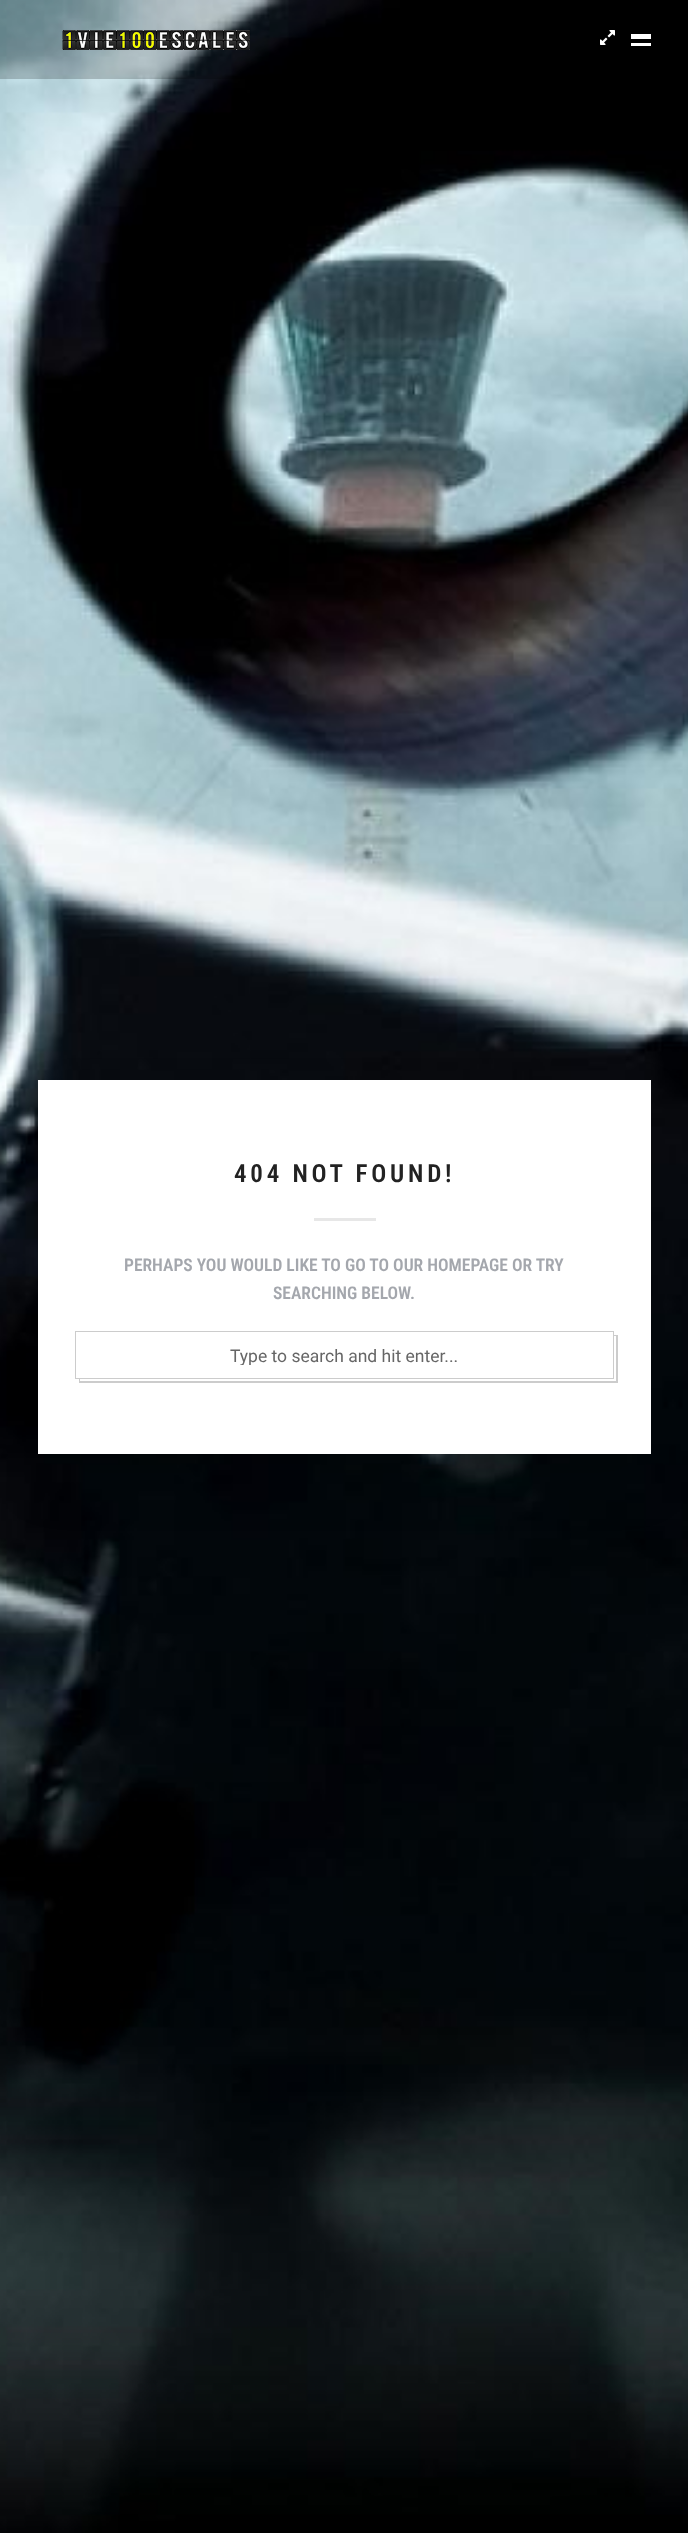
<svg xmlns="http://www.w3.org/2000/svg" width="688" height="2533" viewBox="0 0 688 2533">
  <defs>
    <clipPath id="clip1"><rect x="89" y="1345" width="511" height="20"/></clipPath>
  </defs>
  <rect width="100%" height="100%" fill="rgb(255,255,255)"/>
  <image x="0" y="0" width="688" height="2533" href="pic3.png"/>
  <rect x="0" y="0" width="363" height="79" fill="rgba(0,0,0,0.2)"/>
  <image x="62" y="30" width="188" height="20" href="pic1.png"/>
  <image x="600" y="30" width="15" height="15" href="pic2.png"/>
  <rect x="631" y="34" width="20" height="5" fill="rgb(255,255,255)"/>
  <rect x="631" y="43" width="20" height="3" fill="rgb(255,255,255)"/>
  <rect x="38" y="1108" width="613" height="373" fill="rgba(0,0,0,0.15)" filter="blur(25px)"/>
  <rect x="38" y="1080" width="613" height="374" fill="rgb(255,255,255)"/>
  <text x="234" y="1182" font-family="Roboto Condensed" font-size="25" font-weight="600" letter-spacing="3.75" fill="rgb(34,34,34)">404 NOT FOUND!</text>
  <rect x="314" y="1218" width="62" height="3" fill="rgb(231,231,231)"/>
  <g font-family="Roboto Condensed" font-size="17.5" font-weight="600" fill="rgb(164,167,173)">
    <text x="124" y="1271">PERHAPS YOU WOULD LIKE TO GO TO OUR HOMEPAGE OR TRY</text>
    <text x="273" y="1299">SEARCHING BELOW.</text>
  </g>
  <path d="M79 1379V1383H618V1335H614V1379Z" fill="rgb(204,204,204)"/>
  <path d="M80 1379V1381H616V1336H614V1379Z" fill="rgb(255,255,255)"/>
  <rect x="75.5" y="1331.5" width="538" height="47" fill="none" stroke="rgb(204,204,204)"/>
  <g clip-path="url(#clip1)">
    <text x="230" y="1362" font-family="Roboto" font-size="17.5" fill="rgb(102,102,102)">Type to search and hit enter...</text>
  </g>
</svg>
